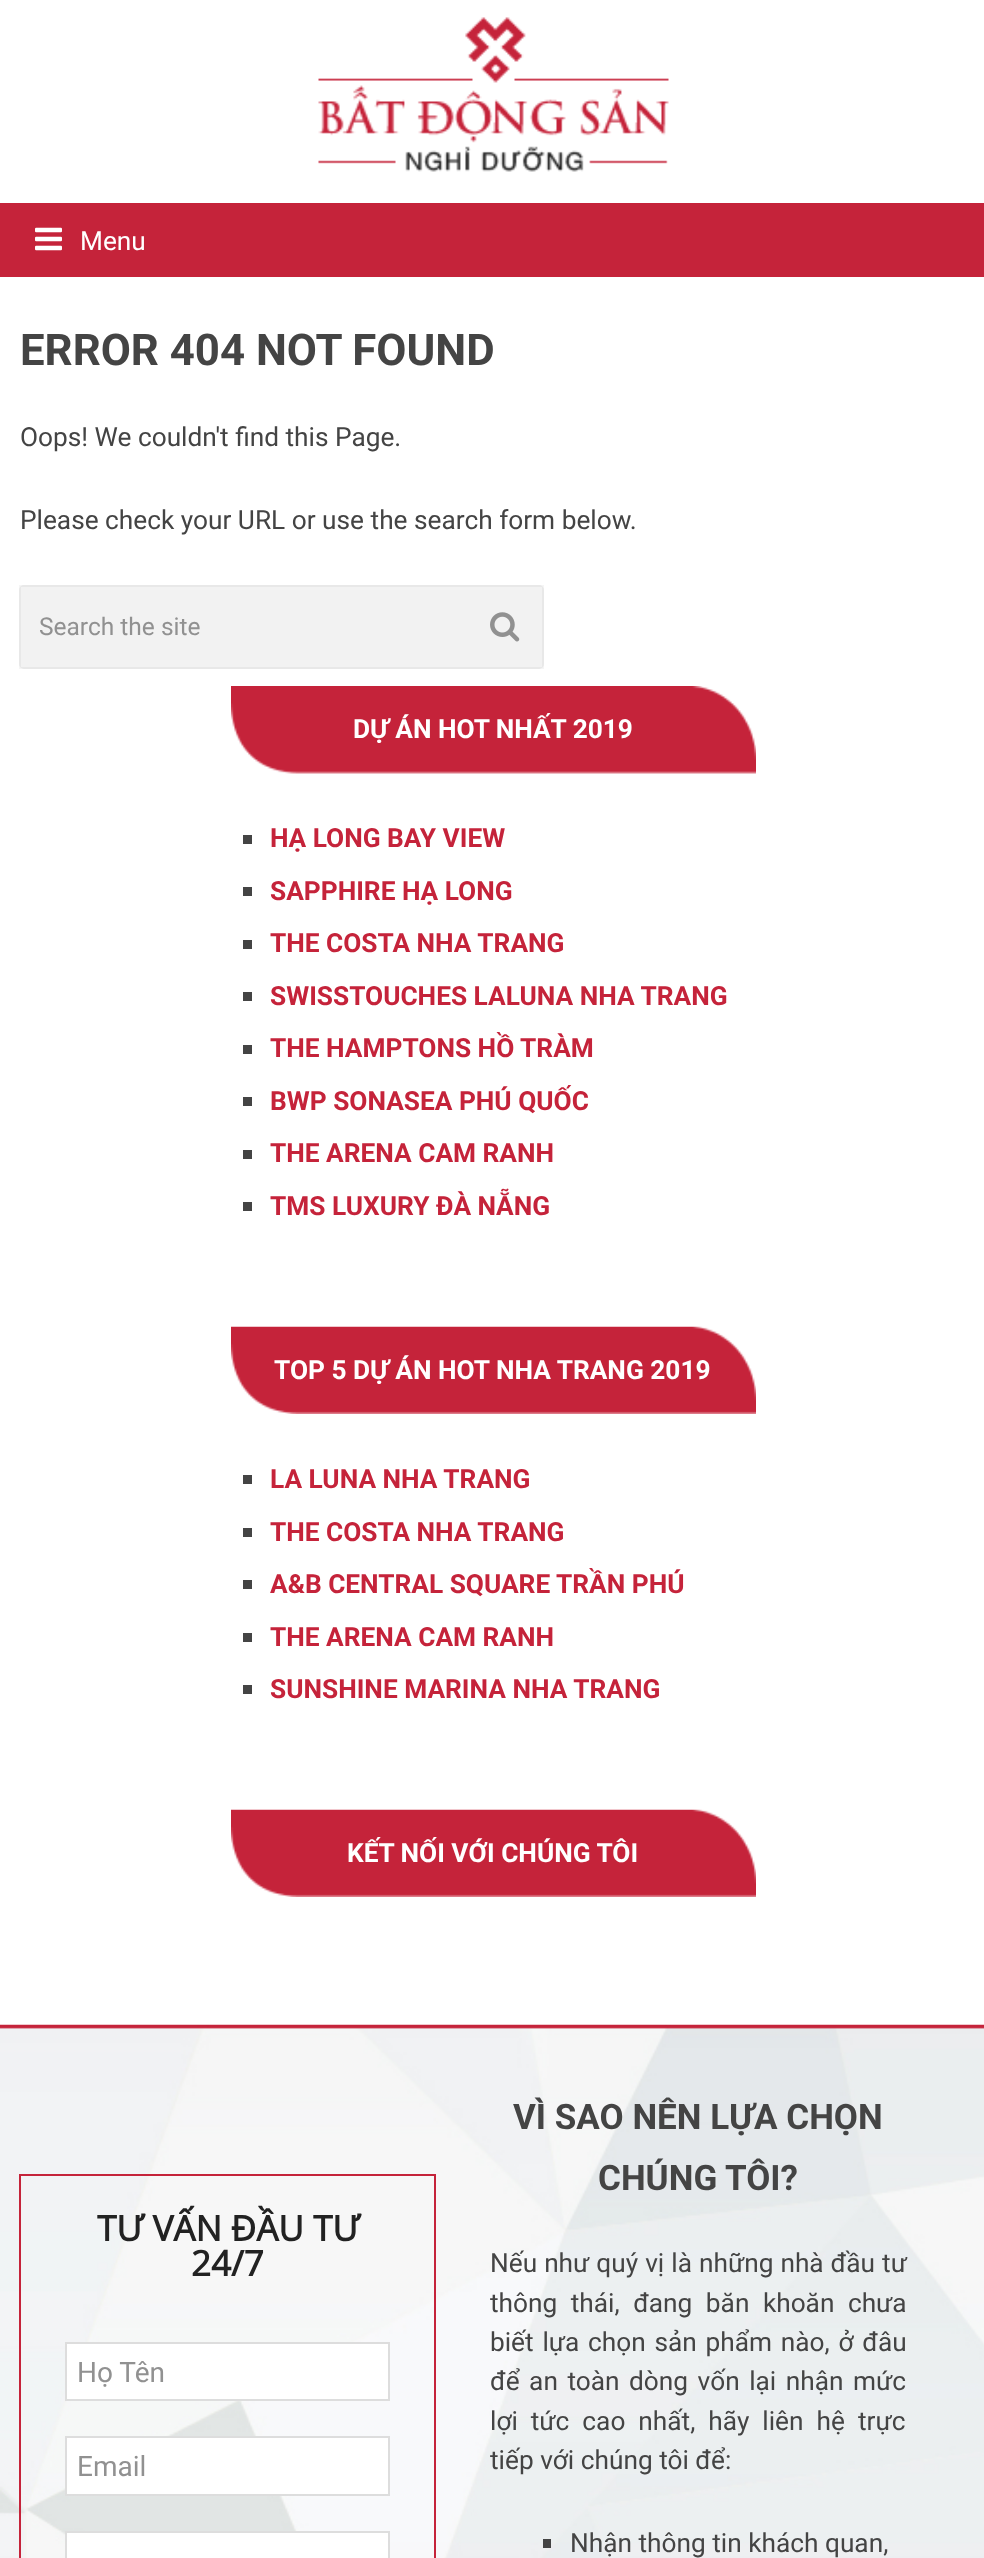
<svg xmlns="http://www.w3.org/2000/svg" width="984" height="2558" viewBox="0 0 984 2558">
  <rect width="100%" height="100%" fill="rgb(255,255,255)"/>
  <image x="318" y="17" width="351" height="155" href="pic1.png"/>
  <rect x="0" y="203" width="984" height="74" fill="rgb(197,35,58)"/>
  <image x="35" y="227" width="27" height="24" href="pic2.png"/>
  <text x="80" y="250" font-family="Roboto" font-size="26.25" fill="rgb(255,255,255)">Menu</text>
  <text x="20" y="365" font-family="Roboto" font-size="43.75" font-weight="bold" fill="rgb(68,68,68)">ERROR 404 NOT FOUND</text>
  <g font-family="Roboto" font-size="26.25" fill="rgb(68,68,68)">
    <text x="20" y="446">Oops! We couldn't find this Page.</text>
    <text x="20" y="529">Please check your URL or use the search form below.</text>
  </g>
  <rect x="19" y="585" width="525" height="84" rx="5" fill="rgb(242,242,242)"/>
  <rect x="20" y="586" width="523" height="82" fill="none" stroke="rgba(0,0,0,0.04)" stroke-width="2"/>
  <text x="39" y="635" font-family="Roboto" font-size="24.5" fill="rgb(145,145,145)">Search the site</text>
  <image x="490" y="612" width="30" height="30" href="pic3.png"/>
  <image x="231" y="686" width="525" height="88" href="pic4.png"/>
  <text x="353" y="738" font-family="Roboto" font-size="26.25" font-weight="bold" fill="rgb(255,255,255)">DỰ ÁN HOT NHẤT 2019</text>
  <rect x="243" y="835" width="9" height="9" fill="rgb(68,68,68)"/>
  <text x="270" y="847" font-family="Roboto" font-size="26.25" font-weight="bold" fill="rgb(197,35,58)">HẠ LONG BAY VIEW</text>
  <rect x="243" y="887" width="9" height="9" fill="rgb(68,68,68)"/>
  <text x="270" y="900" font-family="Roboto" font-size="26.25" font-weight="bold" fill="rgb(197,35,58)">SAPPHIRE HẠ LONG</text>
  <rect x="243" y="940" width="9" height="9" fill="rgb(68,68,68)"/>
  <text x="270" y="952" font-family="Roboto" font-size="26.25" font-weight="bold" fill="rgb(197,35,58)">THE COSTA NHA TRANG</text>
  <rect x="243" y="992" width="9" height="9" fill="rgb(68,68,68)"/>
  <text x="270" y="1005" font-family="Roboto" font-size="26.25" font-weight="bold" fill="rgb(197,35,58)">SWISSTOUCHES LALUNA NHA TRANG</text>
  <rect x="243" y="1045" width="9" height="9" fill="rgb(68,68,68)"/>
  <text x="270" y="1057" font-family="Roboto" font-size="26.25" font-weight="bold" fill="rgb(197,35,58)">THE HAMPTONS HỒ TRÀM</text>
  <rect x="243" y="1097" width="9" height="9" fill="rgb(68,68,68)"/>
  <text x="270" y="1110" font-family="Roboto" font-size="26.25" font-weight="bold" fill="rgb(197,35,58)">BWP SONASEA PHÚ QUỐC</text>
  <rect x="243" y="1150" width="9" height="9" fill="rgb(68,68,68)"/>
  <text x="270" y="1162" font-family="Roboto" font-size="26.25" font-weight="bold" fill="rgb(197,35,58)">THE ARENA CAM RANH</text>
  <rect x="243" y="1202" width="9" height="9" fill="rgb(68,68,68)"/>
  <text x="270" y="1215" font-family="Roboto" font-size="26.25" font-weight="bold" fill="rgb(197,35,58)">TMS LUXURY ĐÀ NẴNG</text>
  <image x="231" y="1326" width="525" height="88" href="pic5.png"/>
  <text x="274" y="1379" font-family="Roboto" font-size="26.25" font-weight="bold" fill="rgb(255,255,255)">TOP 5 DỰ ÁN HOT NHA TRANG 2019</text>
  <rect x="243" y="1475" width="9" height="9" fill="rgb(68,68,68)"/>
  <text x="270" y="1488" font-family="Roboto" font-size="26.25" font-weight="bold" fill="rgb(197,35,58)">LA LUNA NHA TRANG</text>
  <rect x="243" y="1528" width="9" height="9" fill="rgb(68,68,68)"/>
  <text x="270" y="1541" font-family="Roboto" font-size="26.25" font-weight="bold" fill="rgb(197,35,58)">THE COSTA NHA TRANG</text>
  <rect x="243" y="1580" width="9" height="9" fill="rgb(68,68,68)"/>
  <text x="270" y="1593" font-family="Roboto" font-size="26.25" font-weight="bold" fill="rgb(197,35,58)">A&amp;B CENTRAL SQUARE TRẦN PHÚ</text>
  <rect x="243" y="1633" width="9" height="9" fill="rgb(68,68,68)"/>
  <text x="270" y="1646" font-family="Roboto" font-size="26.25" font-weight="bold" fill="rgb(197,35,58)">THE ARENA CAM RANH</text>
  <rect x="243" y="1685" width="9" height="9" fill="rgb(68,68,68)"/>
  <text x="270" y="1698" font-family="Roboto" font-size="26.25" font-weight="bold" fill="rgb(197,35,58)">SUNSHINE MARINA NHA TRANG</text>
  <image x="231" y="1809" width="525" height="88" href="pic5.png"/>
  <text x="347" y="1862" font-family="Roboto" font-size="26.25" font-weight="bold" fill="rgb(255,255,255)">KẾT NỐI VỚI CHÚNG TÔI</text>
  <image x="0" y="2024" width="984" height="534" href="pic6.png"/>
  <rect x="20" y="2175" width="415" height="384" fill="none" stroke="rgb(197,35,58)" stroke-width="2"/>
  <g font-family="Open Sans" font-size="35" font-weight="bold" fill="rgb(34,34,34)">
    <text x="97" y="2241">TƯ VẤN ĐẦU TƯ</text>
    <text x="191" y="2276">24/7</text>
  </g>
  <rect x="66" y="2343" width="323" height="57" fill="rgb(255,255,255)" stroke="rgb(221,221,221)" stroke-width="2"/>
  <text x="77" y="2382" font-family="Roboto" font-size="28" fill="rgb(145,145,145)">Họ Tên</text>
  <rect x="66" y="2437" width="323" height="58" fill="rgb(255,255,255)" stroke="rgb(221,221,221)" stroke-width="2"/>
  <text x="77" y="2476" font-family="Roboto" font-size="28" fill="rgb(145,145,145)">Email</text>
  <rect x="66" y="2532" width="323" height="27" fill="rgb(255,255,255)" stroke="rgb(221,221,221)" stroke-width="2"/>
  <g font-family="Roboto" font-size="35" font-weight="bold" fill="rgb(68,68,68)">
    <text x="513" y="2129">VÌ SAO NÊN LỰA CHỌN</text>
    <text x="598" y="2190">CHÚNG TÔI?</text>
  </g>
  <g font-family="Roboto" font-size="26.25" fill="rgb(68,68,68)">
    <text>
      <tspan x="490" y="2272" word-spacing="0.5">Nếu như quý vị là những nhà đầu tư</tspan>
      <tspan x="490" y="2312" word-spacing="7">thông thái, đang băn khoăn chưa</tspan>
      <tspan x="490" y="2351" word-spacing="2.25">biết lựa chọn sản phẩm nào, ở đâu</tspan>
      <tspan x="490" y="2390" word-spacing="3">để an toàn dòng vốn lại nhận mức</tspan>
      <tspan x="490" y="2430" word-spacing="6.5">lợi tức cao nhất, hãy liên hệ trực</tspan>
      <tspan x="490" y="2469">tiếp với chúng tôi để:</tspan>
    </text>
  </g>
  <rect x="543" y="2539" width="8" height="9" fill="rgb(68,68,68)"/>
  <text x="570" y="2552" font-family="Roboto" font-size="26.25" fill="rgb(68,68,68)">Nhận thông tin khách quan,</text>
</svg>
